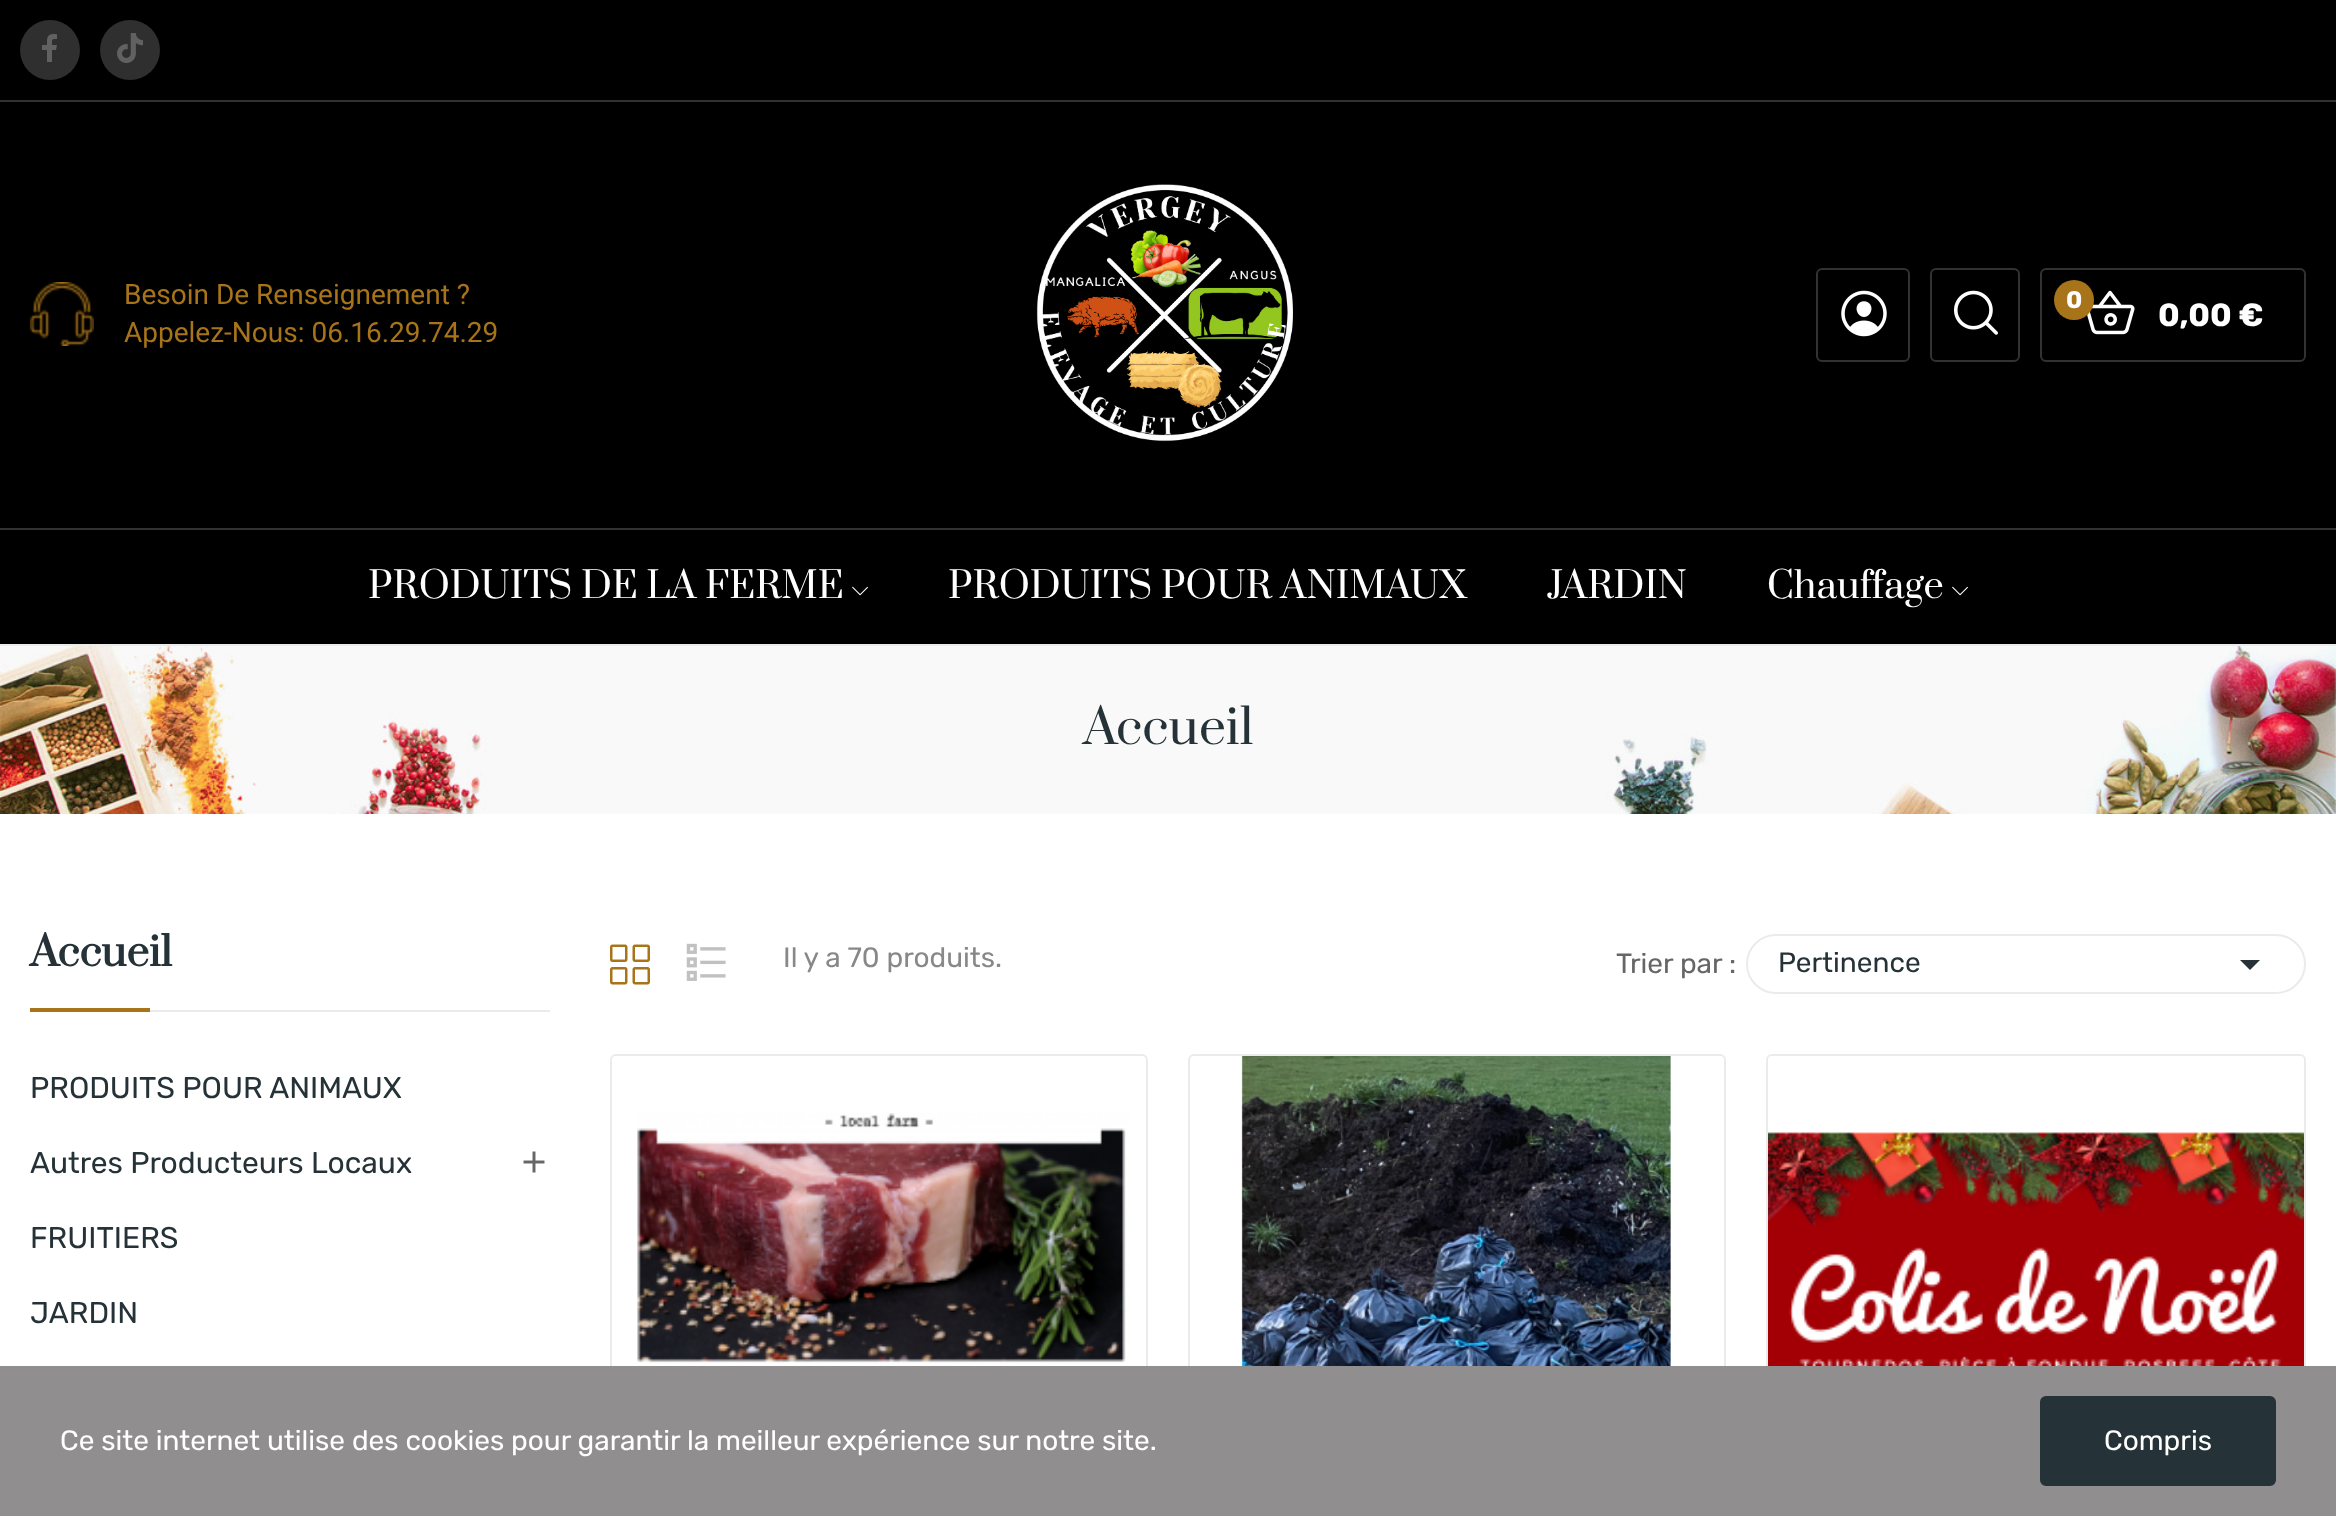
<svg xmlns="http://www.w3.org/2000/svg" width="2336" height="1516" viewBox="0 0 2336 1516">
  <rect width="100%" height="100%" fill="rgb(255,255,255)"/>
  <rect x="0" y="644" width="2336" height="2" fill="rgb(235,235,235)"/>
  <rect x="0" y="0" width="2336" height="100" fill="rgb(0,0,0)"/>
  <rect x="0" y="100" width="2336" height="2" fill="rgb(50,50,50)"/>
  <circle cx="50" cy="50" r="30" fill="rgb(47,47,47)"/>
  <image x="42" y="34" width="15" height="28" href="pic1.png"/>
  <circle cx="130" cy="50" r="30" fill="rgb(47,47,47)"/>
  <image x="117" y="33" width="26" height="30" href="pic2.png"/>
  <rect x="0" y="102" width="2336" height="426" fill="rgb(0,0,0)"/>
  <image x="30" y="282" width="64" height="64" href="pic3.png"/>
  <g font-family="Roboto" font-size="28" fill="rgb(168,116,26)">
    <text>
      <tspan x="124" y="304">Besoin De Renseignement ?</tspan>
      <tspan x="124" y="342">Appelez-Nous: 06.16.29.74.29</tspan>
    </text>
  </g>
  <image x="1036" y="184" width="257" height="258" href="pic4.png"/>
  <rect x="1817" y="269" width="92" height="92" rx="5" fill="none" stroke="rgb(50,50,50)" stroke-width="2"/>
  <image x="1841" y="290" width="46" height="47" href="pic5.png"/>
  <rect x="1931" y="269" width="88" height="92" rx="5" fill="none" stroke="rgb(50,50,50)" stroke-width="2"/>
  <image x="1954" y="290" width="44" height="45" href="pic6.png"/>
  <rect x="2041" y="269" width="264" height="92" rx="5" fill="none" stroke="rgb(50,50,50)" stroke-width="2"/>
  <image x="2087" y="290" width="48" height="45" href="pic7.png"/>
  <circle cx="2074" cy="300" r="20" fill="rgb(168,116,26)"/>
  <text x="2066" y="308" font-family="Rubik" font-size="24" font-weight="bold" fill="rgb(255,255,255)">0</text>
  <text x="2158" y="326" font-family="Rubik" font-size="32" font-weight="bold" fill="rgb(255,255,255)">0,00 €</text>
  <rect x="0" y="530" width="2336" height="114" fill="rgb(0,0,0)"/>
  <rect x="0" y="528" width="2336" height="2" fill="rgb(50,50,50)"/>
  <text x="368" y="598" font-family="Prata" font-size="36" fill="rgb(255,255,255)">PRODUITS DE LA FERME</text>
  <image x="852" y="586" width="16" height="10" href="pic8.png"/>
  <g font-family="Prata" font-size="36" fill="rgb(255,255,255)">
    <text x="948" y="598">PRODUITS POUR ANIMAUX</text>
    <text x="1547" y="598">JARDIN</text>
    <text x="1767" y="598">Chauffage</text>
  </g>
  <image x="1952" y="586" width="16" height="10" href="pic8.png"/>
  <image x="0" y="646" width="2336" height="168" href="pic9.png"/>
  <text x="1083" y="744" font-family="Prata" font-size="48" fill="rgb(37,50,55)">Accueil</text>
  <rect x="150" y="1010" width="400" height="2" fill="rgb(235,235,235)"/>
  <text x="30" y="966" font-family="Prata" font-size="40" font-weight="bold" fill="rgb(37,50,55)">Accueil</text>
  <rect x="30" y="1008" width="120" height="4" fill="rgb(168,116,26)"/>
  <g font-family="Rubik" font-size="30" fill="rgb(37,50,55)">
    <text x="30" y="1098">PRODUITS POUR ANIMAUX</text>
    <text x="30" y="1173">Autres Producteurs Locaux</text>
  </g>
  <image x="523" y="1151" width="22" height="22" href="pic10.png"/>
  <g font-family="Rubik" font-size="30" fill="rgb(37,50,55)">
    <text x="30" y="1248">FRUITIERS</text>
    <text x="30" y="1323">JARDIN</text>
  </g>
  <image x="610" y="944" width="40" height="41" href="pic11.png"/>
  <image x="686" y="943" width="40" height="38" href="pic12.png"/>
  <text x="783" y="967" font-family="Rubik" font-size="28" fill="rgb(136,136,136)">Il y a 70 produits.</text>
  <text x="1616" y="973" font-family="Rubik" font-size="28" fill="rgb(102,102,102)">Trier par :</text>
  <rect x="1747" y="935" width="558" height="58" rx="29" fill="none" stroke="rgb(235,235,235)" stroke-width="2"/>
  <text x="1778" y="972" font-family="Rubik" font-size="28" fill="rgb(37,50,55)">Pertinence</text>
  <path d="M2240 960H2260L2250 970Z" fill="rgb(37,50,55)"/>
  <rect x="611" y="1055" width="536" height="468" rx="5" fill="none" stroke="rgb(235,235,235)" stroke-width="2"/>
  <path d="M616 1056H1142C1144 1056 1146 1058 1146 1060V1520H612V1060C612 1058 614 1056 616 1056Z" fill="rgb(255,255,255)"/>
  <image x="637" y="1113" width="493" height="253" href="pic13.png"/>
  <rect x="1189" y="1055" width="536" height="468" rx="5" fill="none" stroke="rgb(235,235,235)" stroke-width="2"/>
  <path d="M1194 1056H1720C1722 1056 1724 1058 1724 1060V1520H1190V1060C1190 1058 1192 1056 1194 1056Z" fill="rgb(255,255,255)"/>
  <image x="1241" y="1056" width="430" height="310" href="pic14.png"/>
  <rect x="1767" y="1055" width="538" height="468" rx="5" fill="none" stroke="rgb(235,235,235)" stroke-width="2"/>
  <image x="1768" y="1132" width="536" height="234" href="pic15.png"/>
  <rect x="0" y="1366" width="2336" height="150" fill="rgb(144,142,143)"/>
  <text x="60" y="1450" font-family="Rubik" font-size="28" fill="rgb(255,255,255)">Ce site internet utilise des cookies pour garantir la meilleur expérience sur notre site.</text>
  <rect x="2042" y="1398" width="232" height="86" rx="4" fill="rgb(37,50,55)" stroke="rgb(37,50,55)" stroke-width="4"/>
  <text x="2104" y="1450" font-family="Rubik" font-size="28" fill="rgb(255,255,255)">Compris</text>
</svg>
